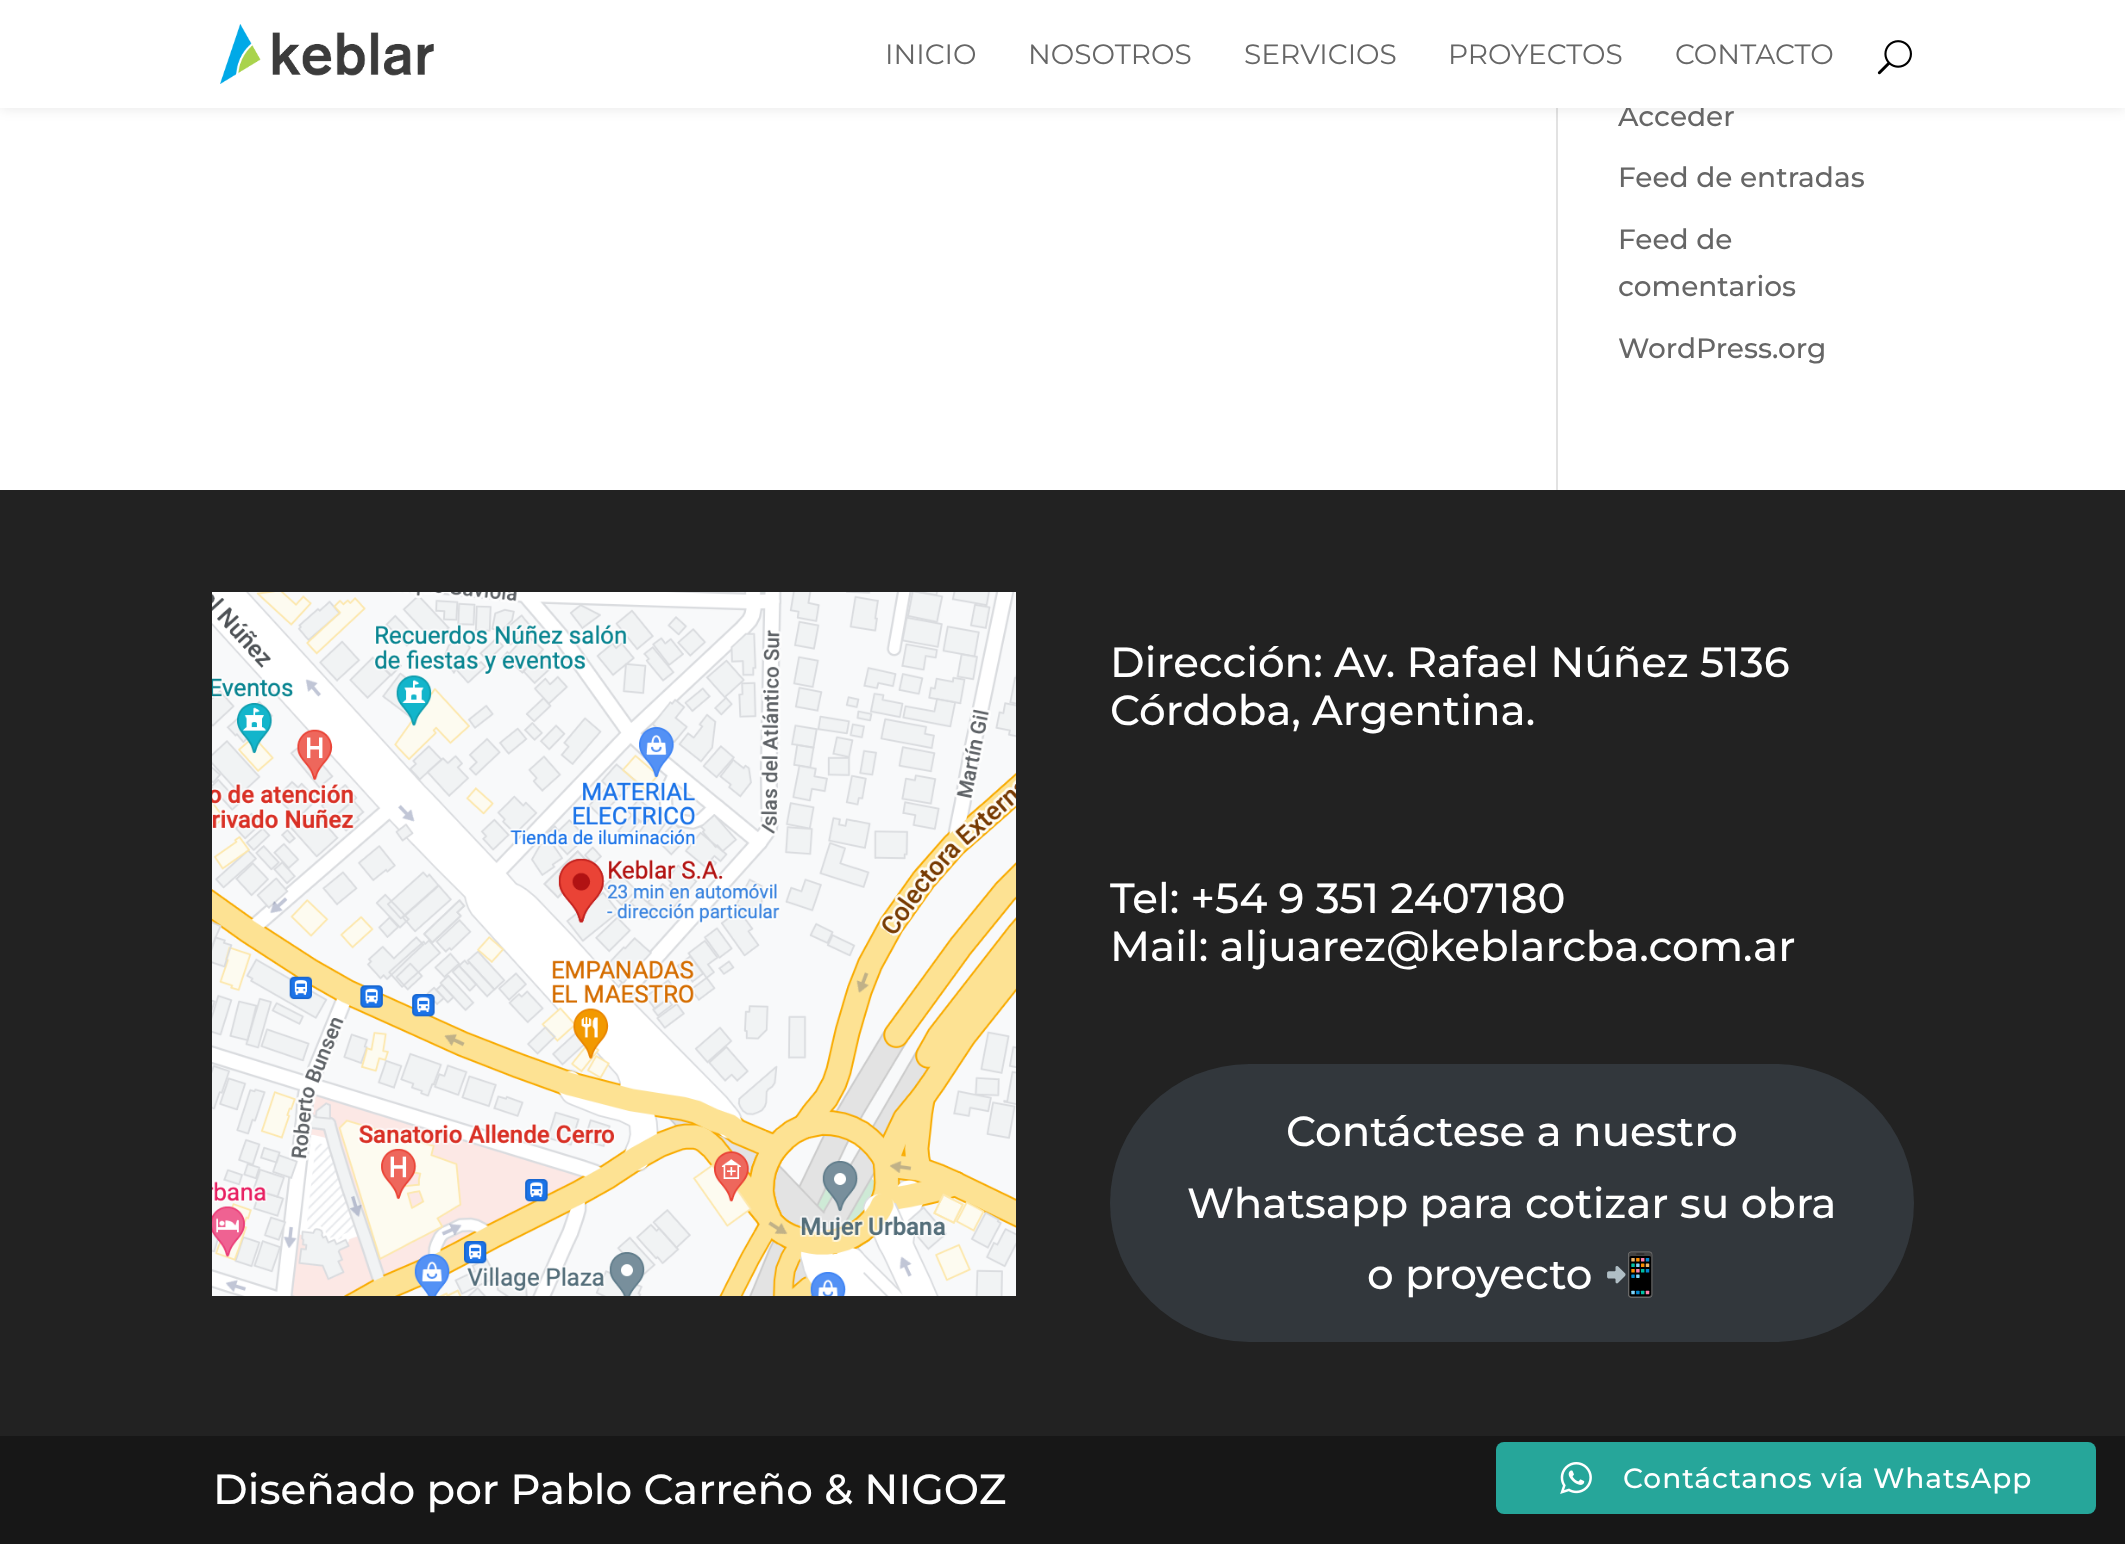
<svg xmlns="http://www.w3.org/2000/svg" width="2125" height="1544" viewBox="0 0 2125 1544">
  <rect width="100%" height="100%" fill="rgb(255,255,255)"/>
  <rect x="1556" y="108" width="2" height="382" fill="rgb(226,226,226)"/>
  <rect x="0" y="0" width="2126" height="108" fill="rgba(0,0,0,0.1)" filter="blur(7px)"/>
  <text x="1618" y="126" font-family="Montserrat" font-size="28" font-weight="500" fill="rgb(102,102,102)">Acceder</text>
  <rect x="0" y="0" width="2125" height="108" fill="rgb(255,255,255)"/>
  <image x="220" y="24" width="214" height="60" href="pic1.png"/>
  <g font-family="Montserrat" font-size="28" fill="rgb(102,102,102)">
    <text x="885" y="64">INICIO</text>
    <text x="1028" y="64">NOSOTROS</text>
    <text x="1244" y="64">SERVICIOS</text>
    <text x="1448" y="64">PROYECTOS</text>
    <text x="1675" y="64">CONTACTO</text>
  </g>
  <image x="1877" y="40" width="35" height="35" href="pic2.png"/>
  <g font-family="Montserrat" font-size="28" font-weight="500" fill="rgb(102,102,102)">
    <text x="1618" y="187">Feed de entradas</text>
    <text>
      <tspan x="1618" y="249">Feed de</tspan>
      <tspan x="1618" y="296">comentarios</tspan>
    </text>
    <text x="1618" y="358">WordPress.org</text>
  </g>
  <rect x="0" y="490" width="2125" height="946" fill="rgb(34,34,34)"/>
  <image x="212" y="592" width="804" height="704" href="pic3.png"/>
  <g font-family="Montserrat" font-size="42" font-weight="500" fill="rgb(255,255,255)">
    <text>
      <tspan x="1110" y="677">Dirección: Av. Rafael Núñez 5136</tspan>
      <tspan x="1110" y="725">Córdoba, Argentina.</tspan>
    </text>
    <text>
      <tspan x="1110" y="913">Tel: +54 9 351 2407180</tspan>
      <tspan x="1110" y="961">Mail: aljuarez@keblarcba.com.ar</tspan>
    </text>
  </g>
  <rect x="1110" y="1064" width="804" height="278" rx="139" fill="rgb(50,55,60)"/>
  <g font-family="Montserrat" font-size="42" font-weight="500" fill="rgb(255,255,255)">
    <text x="1286" y="1146">Contáctese a nuestro</text>
    <text x="1187" y="1218">Whatsapp para cotizar su obra</text>
    <text x="1367" y="1289">o proyecto</text>
  </g>
  <text x="1604" y="1289" font-family="Noto Color Emoji" font-size="42" fill="rgb(255,255,255)">📲</text>
  <rect x="0" y="1436" width="2125" height="108" fill="rgb(23,23,23)"/>
  <text x="213" y="1504" font-family="Montserrat" font-size="42" font-weight="500" fill="rgb(255,255,255)">Diseñado por Pablo Carreño &amp; NIGOZ</text>
  <rect x="1496" y="1442" width="600" height="72" rx="8" fill="rgb(38,166,154)"/>
  <image x="1560" y="1462" width="32" height="32" href="pic4.png"/>
  <text x="1623" y="1488" font-family="Montserrat" font-size="28" font-weight="500" letter-spacing="1" fill="rgb(255,255,255)">Contáctanos vía WhatsApp</text>
</svg>
